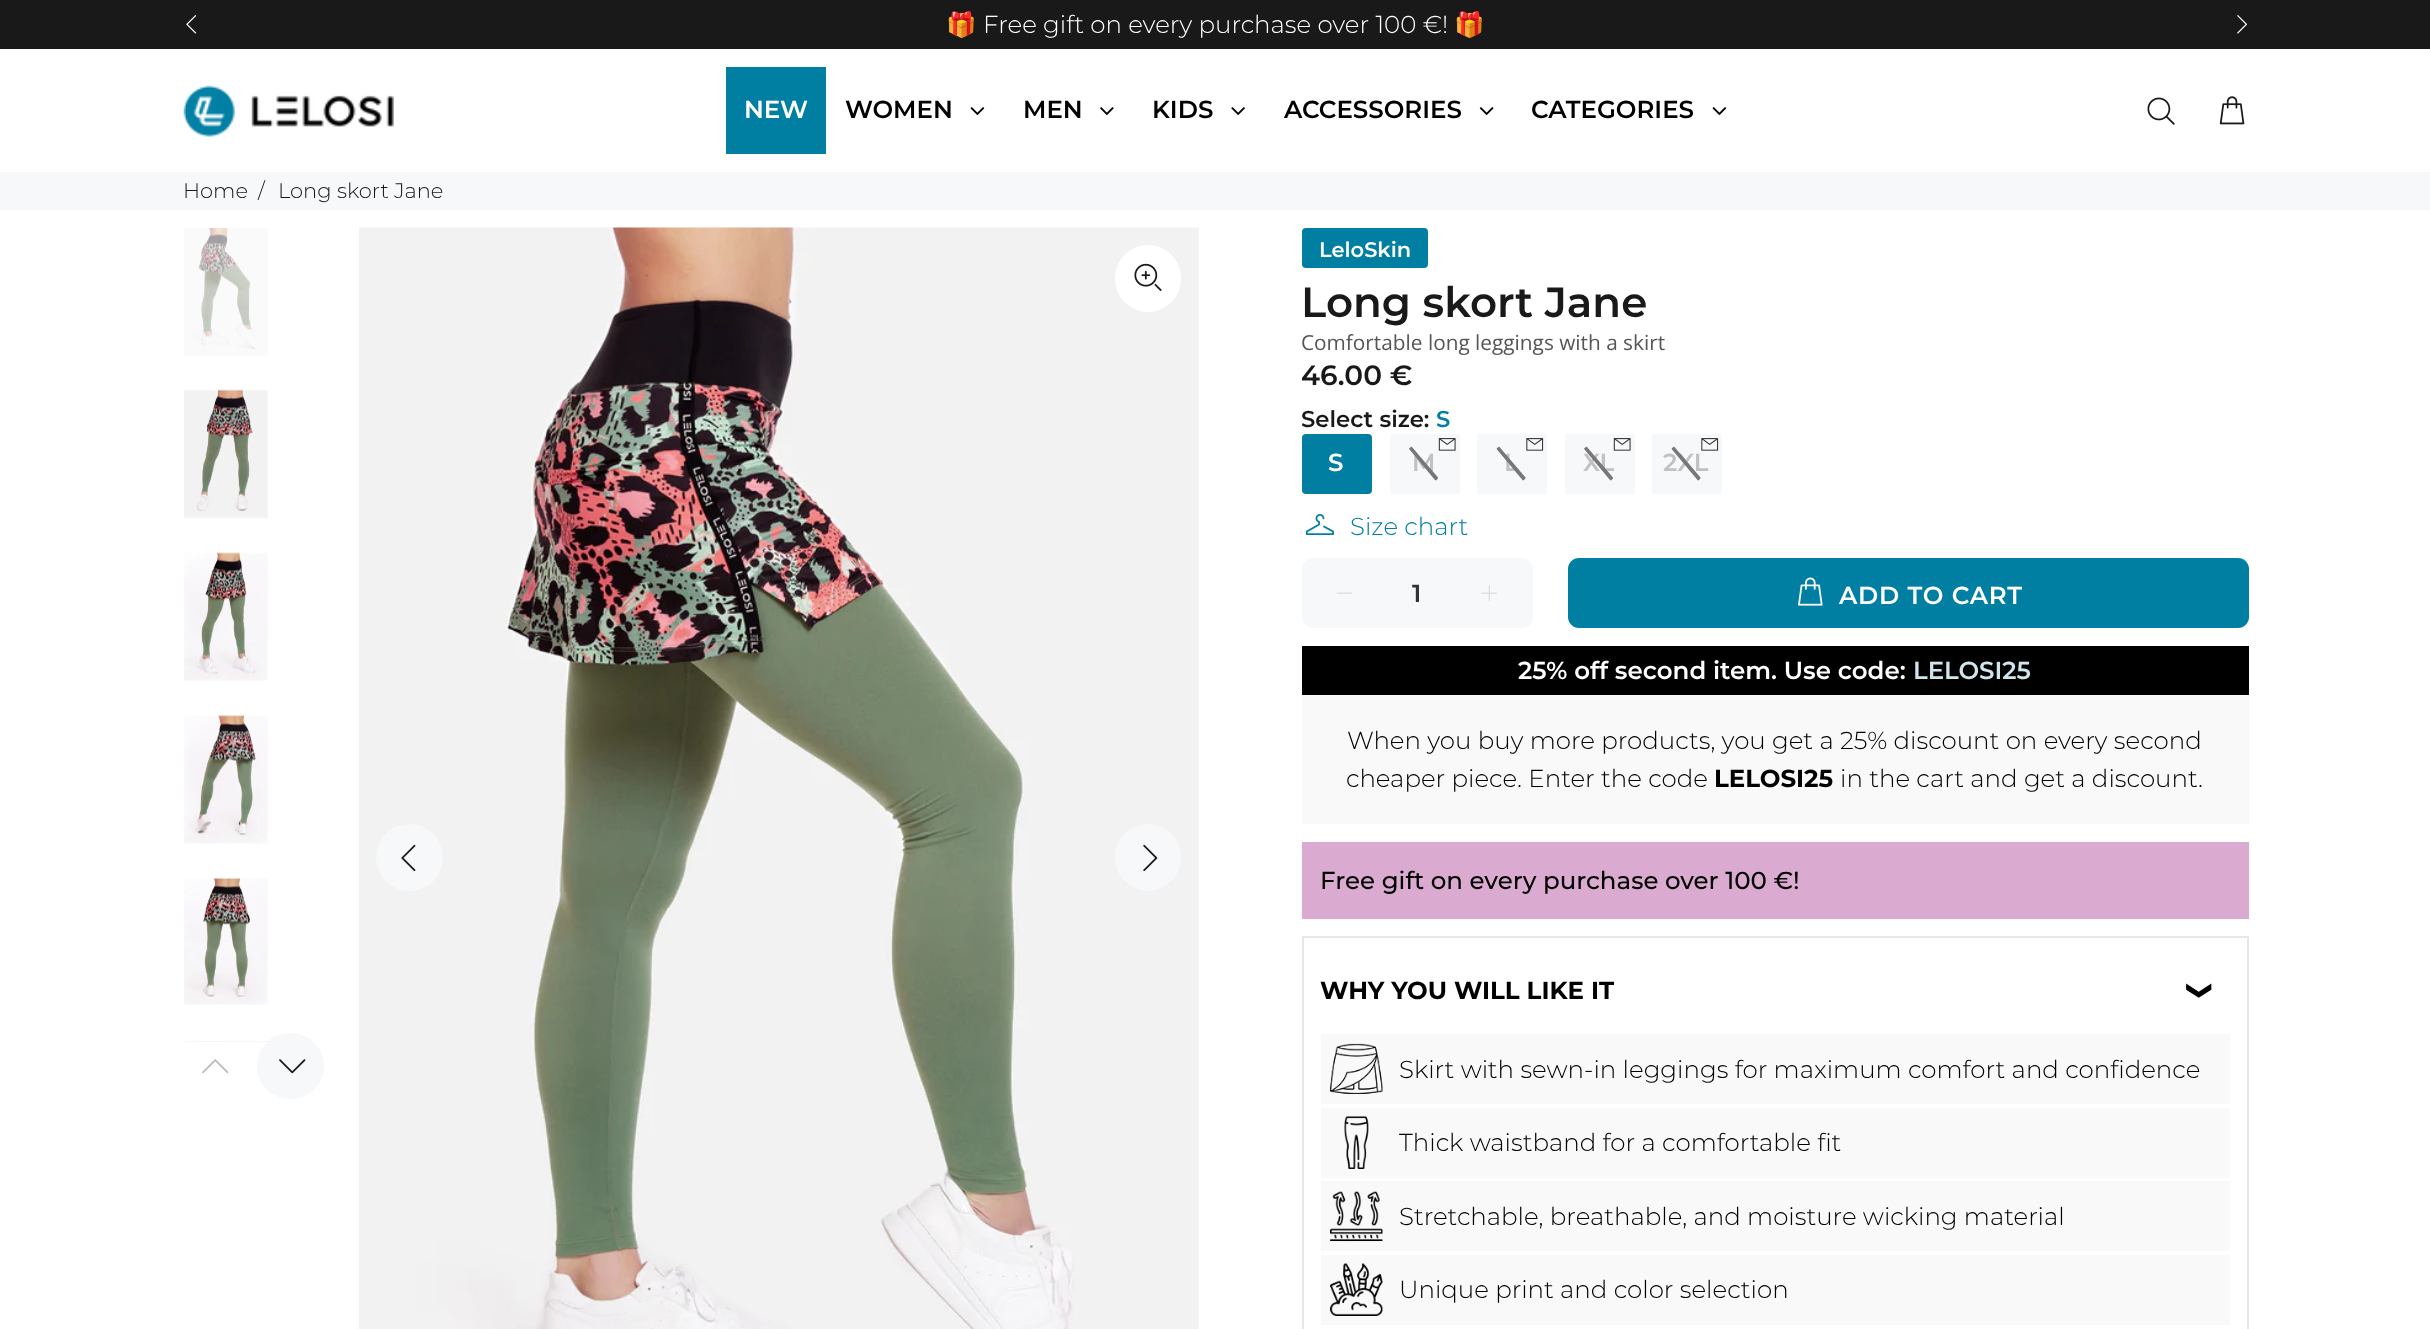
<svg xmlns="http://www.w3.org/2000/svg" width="2430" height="1329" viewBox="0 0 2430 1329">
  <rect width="100%" height="100%" fill="rgb(255,255,255)"/>
  <rect x="0" y="0" width="2430" height="49" fill="rgb(25,25,25)"/>
  <image x="186" y="15" width="11" height="19" href="pic1.png"/>
  <text x="946" y="33" font-family="Noto Color Emoji" font-size="24.5" fill="rgb(255,255,255)">🎁</text>
  <text x="983" y="33" font-family="Montserrat" font-size="24.5" font-weight="300" fill="rgb(255,255,255)">Free gift on every purchase over 100 €!</text>
  <text x="1454" y="33" font-family="Noto Color Emoji" font-size="24.5" fill="rgb(255,255,255)">🎁</text>
  <image x="2237" y="15" width="10" height="19" href="pic2.png"/>
  <image x="183" y="85" width="211" height="52" href="pic3.png"/>
  <rect x="726" y="67" width="100" height="87" fill="rgb(0,127,163)"/>
  <text x="744" y="118" font-family="Montserrat" font-size="24.5" font-weight="600" fill="rgb(255,255,255)">NEW</text>
  <text x="845" y="118" font-family="Montserrat" font-size="24.5" font-weight="600" fill="rgb(0,0,0)">WOMEN</text>
  <image x="970" y="107" width="15" height="8" href="pic4.png"/>
  <text x="1023" y="118" font-family="Montserrat" font-size="24.5" font-weight="600" fill="rgb(0,0,0)">MEN</text>
  <image x="1100" y="107" width="14" height="8" href="pic5.png"/>
  <text x="1152" y="118" font-family="Montserrat" font-size="24.5" font-weight="600" fill="rgb(0,0,0)">KIDS</text>
  <image x="1231" y="107" width="14" height="8" href="pic6.png"/>
  <text x="1284" y="118" font-family="Montserrat" font-size="24.5" font-weight="600" fill="rgb(0,0,0)">ACCESSORIES</text>
  <image x="1479" y="107" width="15" height="8" href="pic7.png"/>
  <text x="1531" y="118" font-family="Montserrat" font-size="24.5" font-weight="600" fill="rgb(0,0,0)">CATEGORIES</text>
  <image x="1712" y="107" width="15" height="8" href="pic4.png"/>
  <image x="2147" y="97" width="28" height="28" href="pic8.png"/>
  <image x="2219" y="96" width="26" height="29" href="pic9.png"/>
  <rect x="0" y="172" width="2430" height="38" fill="rgb(247,248,250)"/>
  <g font-family="Montserrat" font-size="21" font-weight="300" fill="rgb(25,25,25)">
    <text x="183" y="198">Home</text>
    <text x="258" y="198">/</text>
    <text x="278" y="198">Long skort Jane</text>
  </g>
  <image x="184" y="228" width="84" height="128" href="pic10.png"/>
  <image x="184" y="389" width="84" height="130" href="pic11.png"/>
  <image x="184" y="552" width="84" height="129" href="pic12.png"/>
  <image x="184" y="715" width="84" height="129" href="pic13.png"/>
  <image x="184" y="878" width="84" height="127" href="pic14.png"/>
  <image x="184" y="1041" width="84" height="1" href="pic15.png"/>
  <image x="202" y="1059" width="27" height="15" href="pic16.png"/>
  <rect x="257" y="1033" width="67" height="66" rx="33" fill="rgb(247,248,250)"/>
  <image x="279" y="1059" width="27" height="15" href="pic17.png"/>
  <image x="359" y="227" width="840" height="1102" href="pic18.png"/>
  <rect x="1115" y="245" width="66" height="67" rx="33" fill="rgb(255,255,255)"/>
  <image x="1134" y="263" width="28" height="28" href="pic19.png"/>
  <circle cx="409.5" cy="857.5" r="33.5" fill="rgb(247,248,250)"/>
  <image x="401" y="844" width="15" height="28" href="pic20.png"/>
  <rect x="1115" y="824" width="66" height="67" rx="33" fill="rgb(247,248,250)"/>
  <image x="1143" y="844" width="15" height="28" href="pic21.png"/>
  <rect x="1302" y="228" width="126" height="40" rx="4" fill="rgb(0,127,163)"/>
  <text x="1319" y="257" font-family="Montserrat" font-size="21" font-weight="600" fill="rgb(255,255,255)">LeloSkin</text>
  <text x="1301" y="317" font-family="Montserrat" font-size="42" font-weight="600" fill="rgb(25,25,25)">Long skort Jane</text>
  <text x="1301" y="350" font-family="Open Sans" font-size="20.8" fill="rgb(86,86,86)">Comfortable long leggings with a skirt</text>
  <text x="1301" y="385" font-family="Montserrat" font-size="28" font-weight="600" fill="rgb(25,25,25)">46.00 €</text>
  <text x="1301" y="427" font-family="Montserrat" font-size="22.75" font-weight="600" fill="rgb(25,25,25)">Select size:</text>
  <text x="1436" y="427" font-family="Montserrat" font-size="22.75" font-weight="600" fill="rgb(0,127,163)">S</text>
  <rect x="1302" y="434" width="70" height="60" rx="4" fill="rgb(0,127,163)"/>
  <text x="1328" y="471" font-family="Montserrat" font-size="24.5" font-weight="600" fill="rgb(255,255,255)">S</text>
  <rect x="1390" y="434" width="70" height="60" rx="4" fill="rgb(247,248,250)"/>
  <image x="1438" y="438" width="18" height="13" href="pic22.png"/>
  <text x="1412" y="471" font-family="Montserrat" font-size="24.5" font-weight="600" fill="rgb(193,193,193)">M</text>
  <path d="M1409.5 448L1411 447C1411.5 446.5 1412 447 1412 447L1438 477.5C1438 478 1438 478.5 1437.5 479L1436.5 480C1436 480.5 1435.5 480.5 1435 480L1409.5 449.5C1409 449 1409 448.5 1409.5 448Z" fill="rgb(119,119,119)"/>
  <rect x="1477" y="434" width="70" height="60" rx="4" fill="rgb(247,248,250)"/>
  <image x="1526" y="438" width="18" height="13" href="pic23.png"/>
  <text x="1504" y="471" font-family="Montserrat" font-size="24.5" font-weight="600" fill="rgb(193,193,193)">L</text>
  <path d="M1497 448L1498.5 447C1499 446.5 1499.5 447 1499.5 447L1525.5 477.5C1525.5 478 1525.5 478.5 1525 479L1524 480C1523.5 480.5 1523 480.5 1522.5 480L1497 449.5C1496.5 449 1496.5 448.5 1497 448Z" fill="rgb(119,119,119)"/>
  <rect x="1565" y="434" width="70" height="60" rx="4" fill="rgb(247,248,250)"/>
  <image x="1613" y="438" width="18" height="13" href="pic22.png"/>
  <text x="1583" y="471" font-family="Montserrat" font-size="24.5" font-weight="600" fill="rgb(193,193,193)">XL</text>
  <path d="M1584.5 448L1586 447C1586.5 446.5 1587 447 1587 447L1613 477.5C1613 478 1613 478.5 1612.5 479L1611.5 480C1611 480.5 1610.5 480.5 1610 480L1584.5 449.5C1584 449 1584 448.5 1584.5 448Z" fill="rgb(119,119,119)"/>
  <rect x="1652" y="434" width="70" height="60" rx="4" fill="rgb(247,248,250)"/>
  <image x="1701" y="438" width="18" height="13" href="pic23.png"/>
  <text x="1663" y="471" font-family="Montserrat" font-size="24.5" font-weight="600" fill="rgb(193,193,193)">2XL</text>
  <path d="M1672 448L1673.5 447C1674 446.5 1674.5 447 1674.5 447L1700.5 477.5C1700.5 478 1700.5 478.5 1700 479L1699 480C1698.5 480.5 1698 480.5 1697.5 480L1672 449.5C1671.5 449 1671.5 448.5 1672 448Z" fill="rgb(119,119,119)"/>
  <image x="1305" y="514" width="29" height="21" href="pic24.png"/>
  <text x="1350" y="535" font-family="Montserrat" font-size="24.5" font-weight="300" fill="rgb(0,127,163)">Size chart</text>
  <rect x="1302" y="558" width="231" height="70" rx="11" fill="rgb(247,248,250)"/>
  <image x="1336" y="592" width="16" height="2" href="pic25.png"/>
  <text x="1412" y="602" font-family="Montserrat" font-size="24.5" font-weight="600" fill="rgb(51,51,51)">1</text>
  <image x="1481" y="585" width="16" height="16" href="pic26.png"/>
  <rect x="1568" y="558" width="681" height="70" rx="11" fill="rgb(0,127,163)"/>
  <image x="1798" y="577" width="25" height="29" href="pic27.png"/>
  <text x="1839" y="604" font-family="Montserrat" font-size="24.5" font-weight="600" letter-spacing="0.75" fill="rgb(255,255,255)">ADD TO CART</text>
  <rect x="1302" y="646" width="947" height="49" fill="rgb(0,0,0)"/>
  <text x="1518" y="679" font-family="Montserrat" font-size="24.5" font-weight="600" fill="rgb(255,255,255)">25% off second item. Use code:</text>
  <text x="1913" y="679" font-family="Montserrat" font-size="24.5" font-weight="600" fill="rgb(208,229,236)">LELOSI25</text>
  <rect x="1302" y="695" width="947" height="129" fill="rgb(249,249,249)"/>
  <g font-family="Montserrat" font-size="24.5" font-weight="300" fill="rgb(0,0,0)">
    <text x="1347" y="749">When you buy more products, you get a 25% discount on every second</text>
    <text x="1346" y="787">cheaper piece. Enter the code</text>
  </g>
  <text x="1714" y="787" font-family="Montserrat" font-size="24.5" font-weight="bold" fill="rgb(0,0,0)">LELOSI25</text>
  <text x="1840" y="787" font-family="Montserrat" font-size="24.5" font-weight="300" fill="rgb(0,0,0)">in the cart and get a discount.</text>
  <rect x="1302" y="842" width="947" height="77" fill="rgb(219,170,209)"/>
  <text x="1320" y="889" font-family="Montserrat" font-size="24.5" font-weight="500" fill="rgb(0,0,0)">Free gift on every purchase over 100 €!</text>
  <rect x="1303" y="937" width="945" height="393" fill="none" stroke="rgb(231,231,231)" stroke-width="2"/>
  <text x="1320" y="999" font-family="Montserrat" font-size="24.5" font-weight="bold" fill="rgb(0,0,0)">WHY YOU WILL LIKE IT</text>
  <text x="2192" y="980" transform="rotate(90 2192 980)" font-family="DejaVu Sans" font-size="24.5" font-weight="bold" fill="rgb(0,0,0)">❯</text>
  <rect x="1321" y="1034" width="909" height="70" fill="rgb(249,249,249)"/>
  <image x="1330" y="1043" width="53" height="51" href="pic28.png"/>
  <text x="1399" y="1078" font-family="Montserrat" font-size="24.5" font-weight="300" fill="rgb(0,0,0)">Skirt with sewn-in leggings for maximum comfort and confidence</text>
  <rect x="1321" y="1108" width="909" height="70" fill="rgb(249,249,249)"/>
  <image x="1344" y="1116" width="25" height="53" href="pic29.png"/>
  <text x="1399" y="1151" font-family="Montserrat" font-size="24.5" font-weight="300" fill="rgb(0,0,0)">Thick waistband for a comfortable fit</text>
  <rect x="1321" y="1181" width="909" height="70" fill="rgb(249,249,249)"/>
  <image x="1330" y="1191" width="53" height="51" href="pic30.png"/>
  <text x="1399" y="1225" font-family="Montserrat" font-size="24.5" font-weight="300" fill="rgb(0,0,0)">Stretchable, breathable, and moisture wicking material</text>
  <rect x="1321" y="1255" width="909" height="70" fill="rgb(249,249,249)"/>
  <image x="1330" y="1263" width="53" height="53" href="pic31.png"/>
  <text x="1399" y="1298" font-family="Montserrat" font-size="24.5" font-weight="300" fill="rgb(0,0,0)">Unique print and color selection</text>
</svg>
